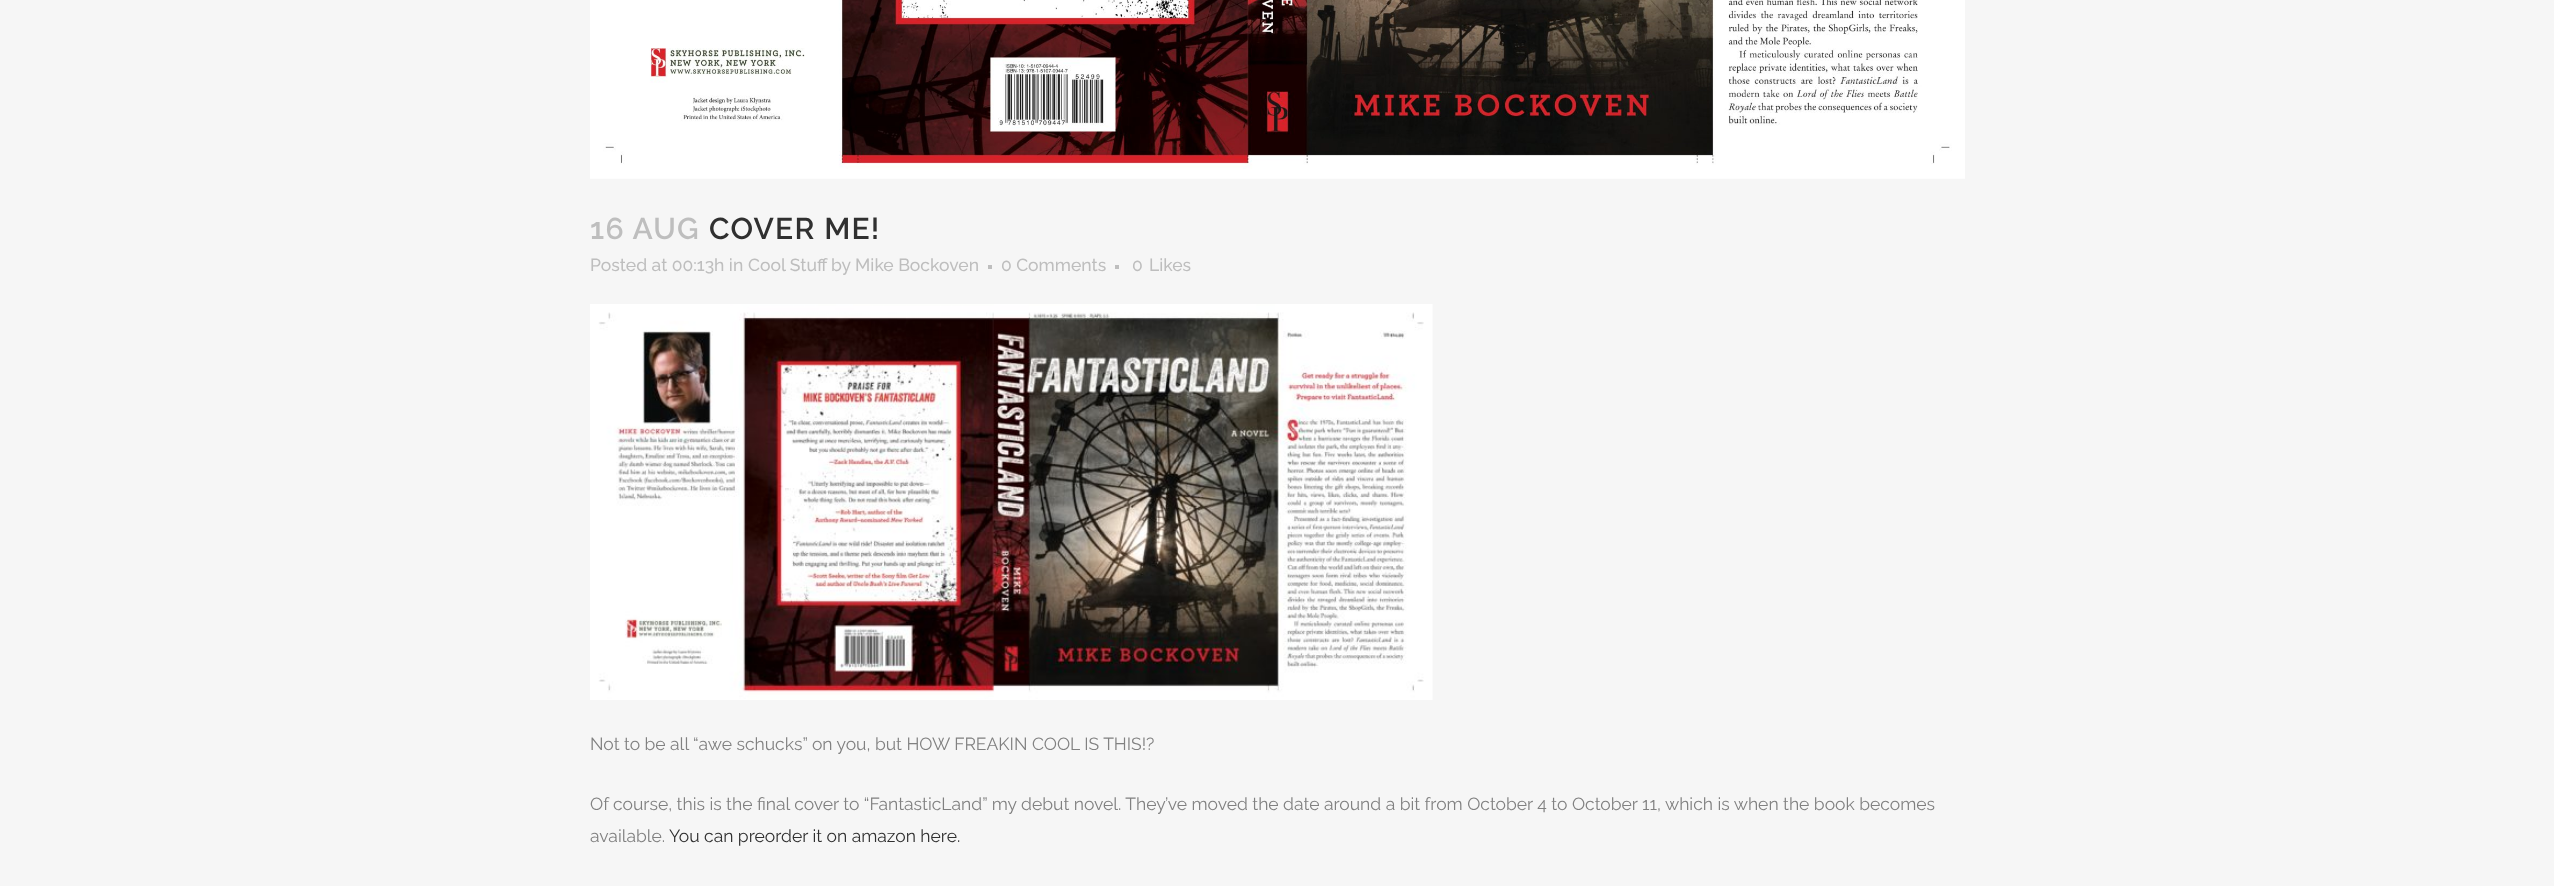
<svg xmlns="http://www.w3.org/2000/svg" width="2554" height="886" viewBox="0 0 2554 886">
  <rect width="100%" height="100%" fill="rgb(246,246,246)"/>
  <image x="590" y="0" width="1375" height="179" href="pic1.png"/>
  <text x="590" y="239" font-family="Raleway" font-size="30" font-weight="600" letter-spacing="1.25" fill="rgb(190,190,190)">16 AUG</text>
  <text x="709" y="239" font-family="Raleway" font-size="30" font-weight="600" letter-spacing="1.25" fill="rgb(48,48,48)">COVER ME!</text>
  <g font-family="Raleway" font-size="17.5" font-weight="500" fill="rgb(190,190,190)">
    <text x="590" y="271">Posted at 00:13h in</text>
    <text x="748" y="271">Cool Stuff</text>
    <text x="831" y="271">by Mike Bockoven</text>
  </g>
  <rect x="988" y="265" width="4" height="4" fill="rgb(190,190,190)"/>
  <text x="1001" y="271" font-family="Raleway" font-size="17.5" font-weight="500" fill="rgb(190,190,190)">0 Comments</text>
  <rect x="1115" y="265" width="4" height="4" fill="rgb(190,190,190)"/>
  <g font-family="Raleway" font-size="17.5" font-weight="500" fill="rgb(190,190,190)">
    <text x="1132" y="271">0</text>
    <text x="1149" y="271">Likes</text>
  </g>
  <image x="590" y="304" width="843" height="396" href="pic2.png"/>
  <g font-family="Raleway" font-size="17.5" fill="rgb(129,129,129)">
    <text x="590" y="750">Not to be all “awe schucks” on you, but HOW FREAKIN COOL IS THIS!?</text>
    <text>
      <tspan x="590" y="810">Of course, this is the final cover to “FantasticLand” my debut novel. They’ve moved the date around a bit from October 4 to October 11, which is when the book becomes</tspan>
      <tspan x="590" y="842">available.</tspan>
    </text>
  </g>
  <text x="669" y="842" font-family="Raleway" font-size="17.5" fill="rgb(48,48,48)">You can preorder it on amazon here.</text>
</svg>
